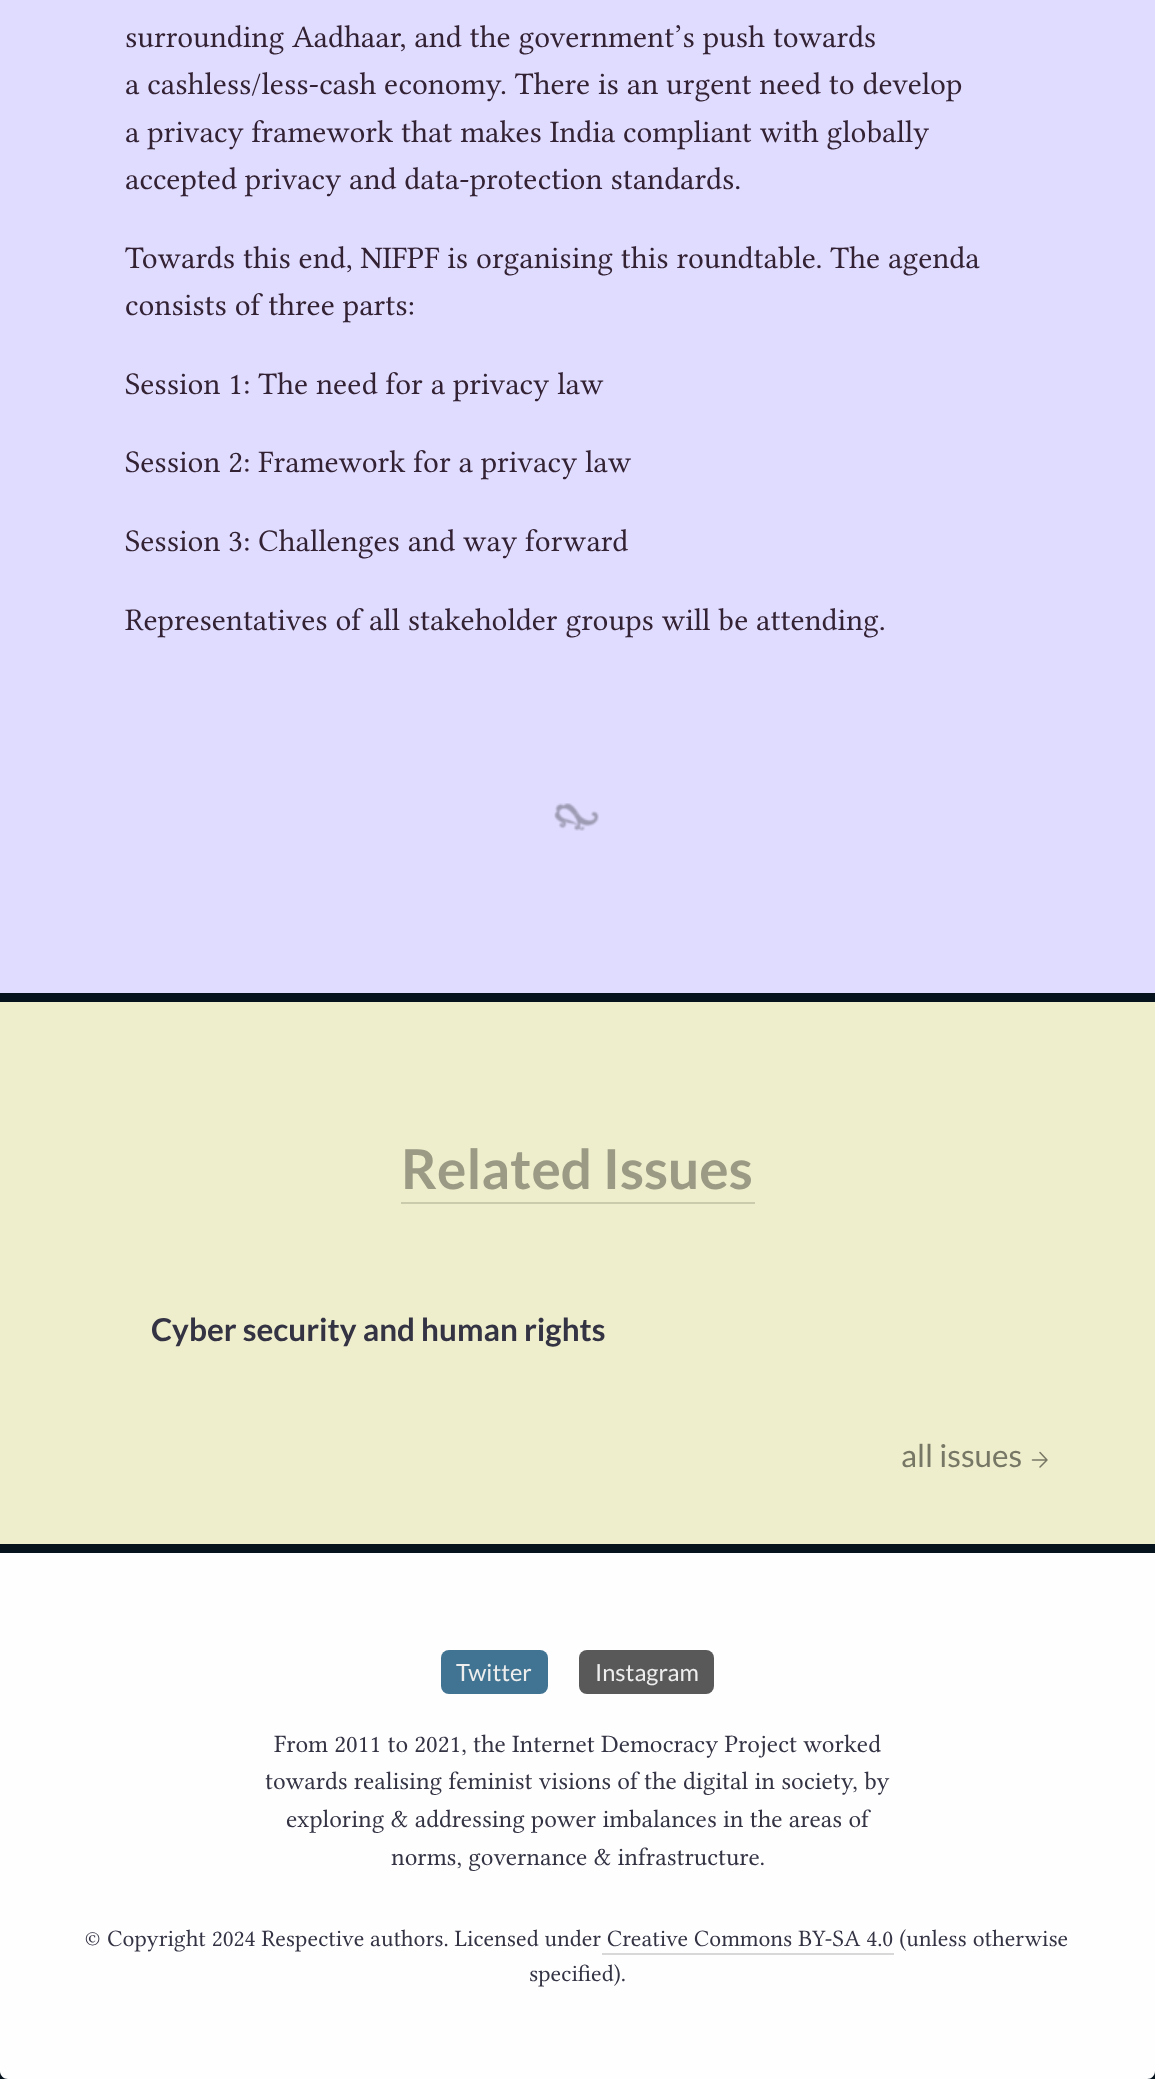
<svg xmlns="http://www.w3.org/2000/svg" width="1155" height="2079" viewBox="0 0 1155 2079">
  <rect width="100%" height="100%" fill="rgb(6,18,28)"/>
  <rect x="0" y="0" width="1155" height="993" fill="rgb(224,220,255)"/>
  <g font-family="Libertinus Serif" font-size="31.5" fill="rgb(51,34,51)">
    <text>
      <tspan x="125" y="47">surrounding Aadhaar, and the government’s push towards</tspan>
      <tspan x="125" y="94">a cashless/less-cash economy. There is an urgent need to develop</tspan>
      <tspan x="125" y="142">a privacy framework that makes India compliant with globally</tspan>
      <tspan x="125" y="189">accepted privacy and data-protection standards.</tspan>
    </text>
    <text>
      <tspan x="125" y="268">Towards this end, NIFPF is organising this roundtable. The agenda</tspan>
      <tspan x="125" y="315">consists of three parts:</tspan>
    </text>
    <text x="125" y="394">Session 1: The need for a privacy law</text>
    <text x="125" y="472">Session 2: Framework for a privacy law</text>
    <text x="125" y="551">Session 3: Challenges and way forward</text>
    <text x="125" y="630">Representatives of all stakeholder groups will be attending.</text>
  </g>
  <image x="554" y="803" width="45" height="28" href="pic1.png"/>
  <rect x="0" y="1002" width="1155" height="542" fill="rgb(238,238,204)"/>
  <text x="401" y="1189" font-family="Lato" font-size="55" font-weight="bold" fill="rgb(155,155,133)">Related Issues</text>
  <rect x="401" y="1202" width="354" height="2" fill="rgb(202,202,173)"/>
  <text x="151" y="1341" font-family="Lato" font-size="31.5" font-weight="bold" fill="rgb(51,51,68)">Cyber security and human rights</text>
  <text x="901" y="1467" font-family="Lato" font-size="31.5" fill="rgb(119,119,102)">all issues</text>
  <path d="M1032.5 1460H1047M1040 1452.5L1047 1460L1040 1467" fill="none" stroke="rgb(119,119,102)" stroke-width="1.5" stroke-linecap="round" stroke-linejoin="round"/>
  <path d="M0 1553H1155V2071C1155 2075.5 1151.5 2079 1147 2079H8C3.5 2079 0 2075.5 0 2071Z" fill="rgb(254,254,255)"/>
  <rect x="441" y="1650" width="107" height="44" rx="8" fill="rgb(65,116,146)"/>
  <text x="456" y="1681" font-family="Lato" font-size="23.6" fill="rgb(238,238,238)">Twitter</text>
  <rect x="579" y="1650" width="135" height="44" rx="8" fill="rgb(89,89,89)"/>
  <text x="595" y="1681" font-family="Lato" font-size="23.6" fill="rgb(238,238,238)">Instagram</text>
  <g font-family="Libertinus Serif" font-size="25.2" fill="rgb(51,51,68)">
    <text x="274" y="1752">From 2011 to 2021, the Internet Democracy Project worked</text>
    <text x="265" y="1789">towards realising feminist visions of the digital in society, by</text>
    <text x="286" y="1827">exploring &amp; addressing power imbalances in the areas of</text>
    <text x="391" y="1865">norms, governance &amp; infrastructure.</text>
  </g>
  <text x="85" y="1946" font-family="Libertinus Serif" font-size="23.6" fill="rgb(51,51,68)">© Copyright 2024 Respective authors. Licensed under Creative Commons BY-SA 4.0 (unless otherwise</text>
  <rect x="602" y="1953" width="292" height="2" fill="rgb(216,216,217)"/>
  <text x="529" y="1981" font-family="Libertinus Serif" font-size="23.6" fill="rgb(51,51,68)">specified).</text>
</svg>
